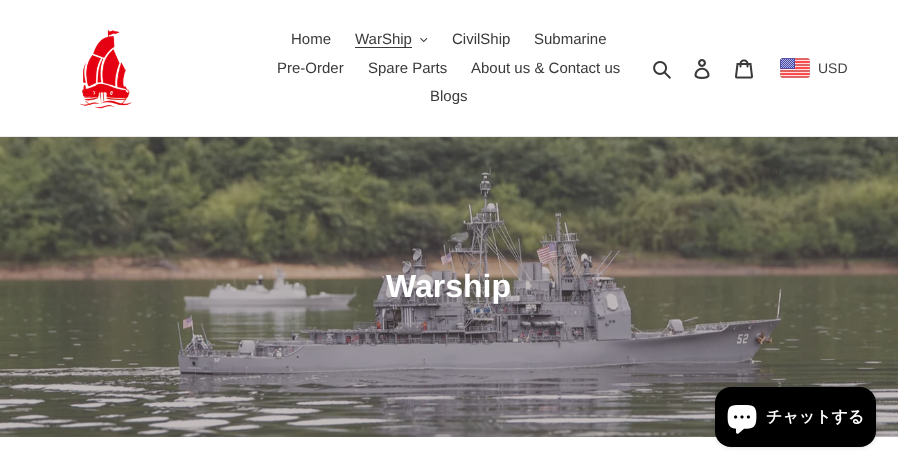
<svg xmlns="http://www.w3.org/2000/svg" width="898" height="468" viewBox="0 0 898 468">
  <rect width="100%" height="100%" fill="rgb(255,255,255)"/>
  <rect x="0" y="136" width="898" height="1" fill="rgb(235,235,235)"/>
  <image x="79" y="30" width="53" height="79" href="pic1.png"/>
  <text x="291" y="44" font-family="Liberation Sans" font-size="15" fill="rgb(58,58,58)">Home</text>
  <rect x="355" y="47" width="57" height="1" fill="rgb(58,58,58)"/>
  <text x="355" y="44" font-family="Liberation Sans" font-size="15" fill="rgb(58,58,58)">WarShip</text>
  <image x="420" y="38" width="8" height="4" href="pic2.png"/>
  <g font-family="Liberation Sans" font-size="15" fill="rgb(58,58,58)">
    <text x="452" y="44">CivilShip</text>
    <text x="534" y="44">Submarine</text>
    <text x="277" y="73">Pre-Order</text>
    <text x="368" y="73">Spare Parts</text>
    <text x="471" y="73">About us &amp; Contact us</text>
    <text x="430" y="101">Blogs</text>
  </g>
  <image x="653" y="61" width="18" height="18" href="pic3.png"/>
  <image x="694" y="59" width="16" height="20" href="pic4.png"/>
  <image x="735" y="59" width="18" height="20" href="pic5.png"/>
  <image x="780" y="58" width="30" height="20" href="pic6.png"/>
  <text x="818" y="73" font-family="Liberation Sans" font-size="14" fill="rgb(64,63,63)">USD</text>
  <image x="0" y="137" width="898" height="300" href="pic7.png"/>
  <text x="772" y="174" font-family="Liberation Sans" font-size="10" fill="rgb(79,78,68)">a</text>
  <text x="386" y="297" font-family="Liberation Sans" font-size="32" font-weight="bold" fill="rgb(255,255,255)">Warship</text>
  <rect x="715" y="387" width="161" height="60" rx="16" fill="rgba(0,0,0,0.15)" filter="blur(2.5px)"/>
  <rect x="715" y="387" width="161" height="60" rx="16" fill="rgb(0,0,0)"/>
  <image x="727" y="405" width="30" height="29" href="pic8.png"/>
  <text x="766" y="422" font-family="WenQuanYi Zen Hei" font-size="16" font-weight="bold" fill="rgb(255,255,255)">チャットする</text>
</svg>
